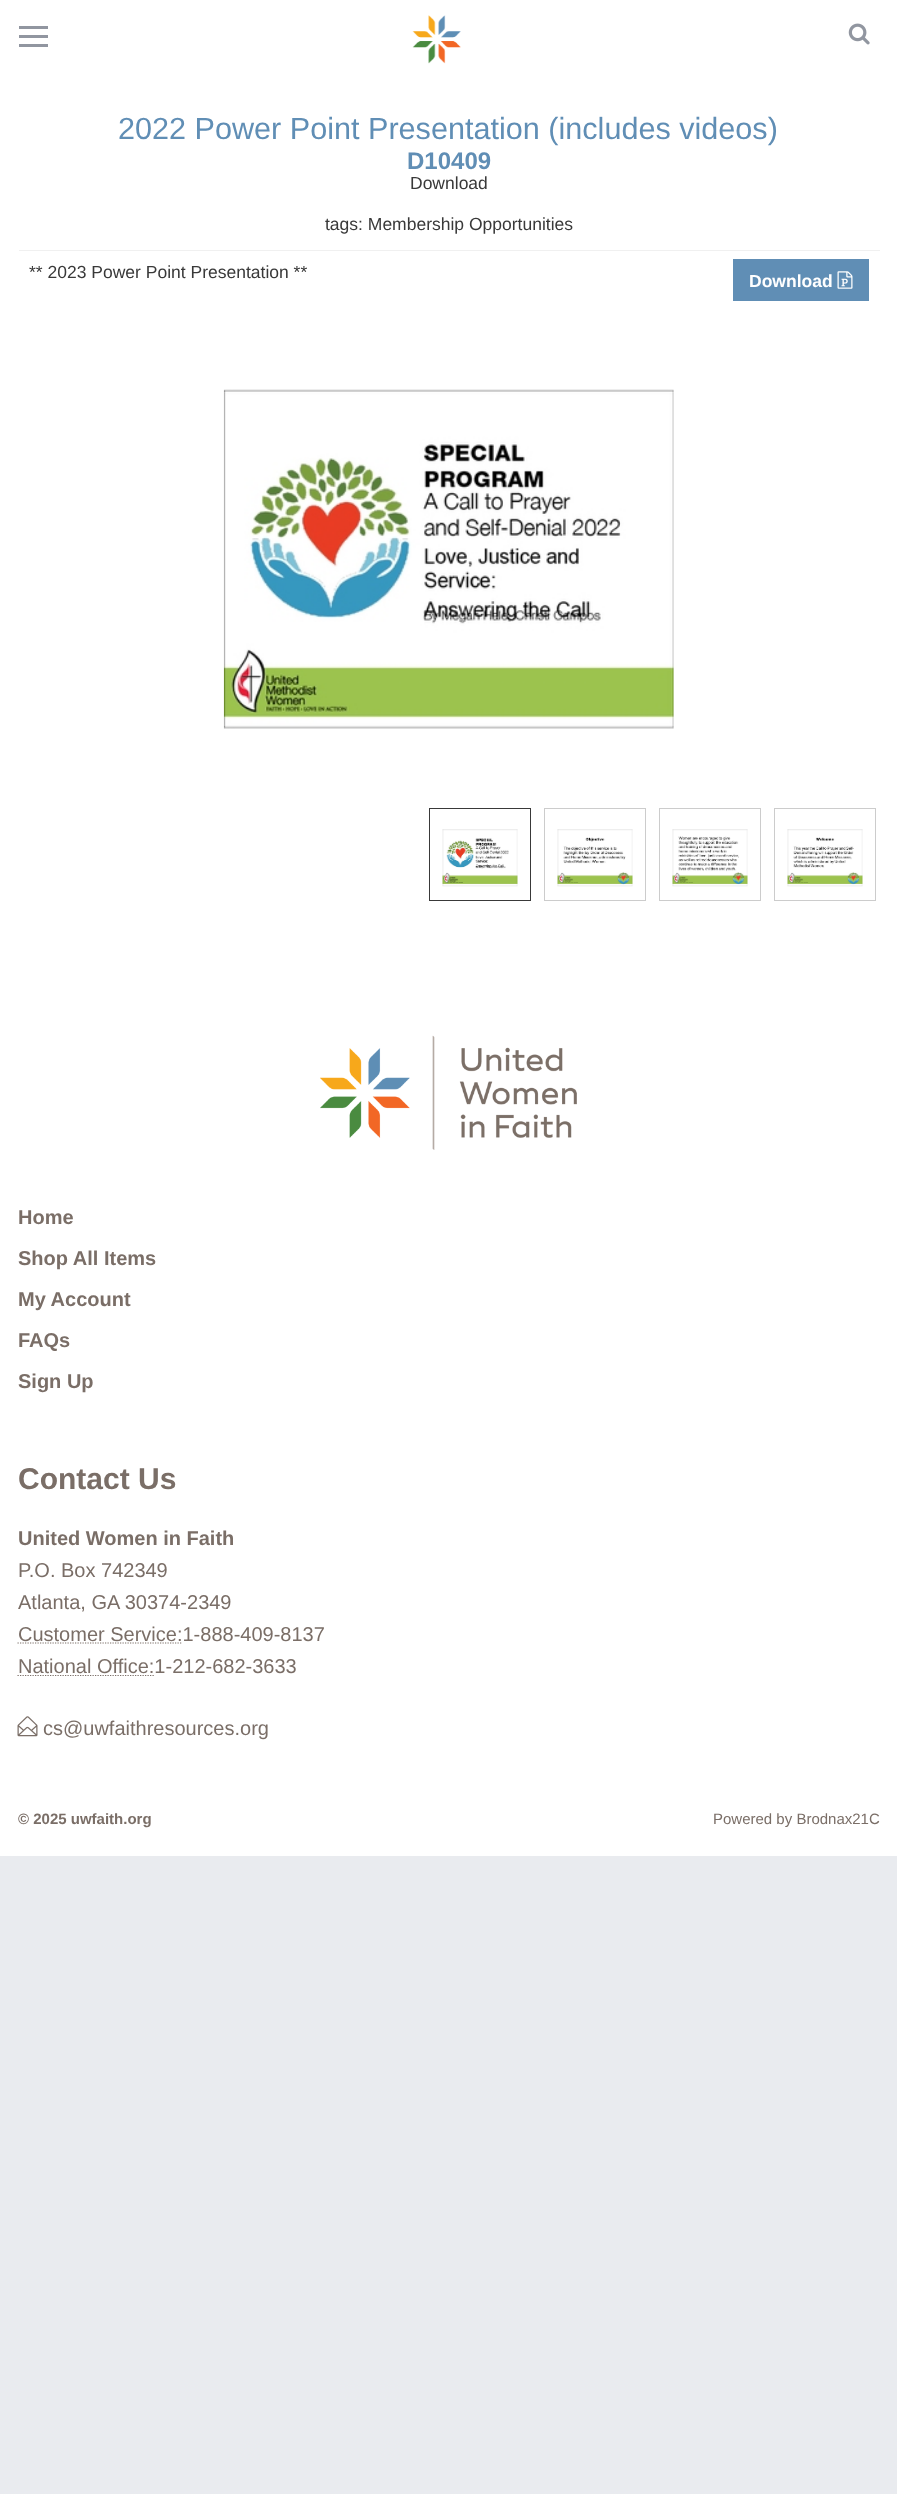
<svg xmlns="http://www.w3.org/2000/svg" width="897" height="2494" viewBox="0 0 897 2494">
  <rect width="100%" height="100%" fill="rgb(233,235,239)"/>
  <rect x="0" y="75" width="897" height="1781" fill="rgb(255,255,255)"/>
  <rect x="0" y="0" width="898" height="75" fill="rgba(0,0,0,0.3)" filter="blur(0.5px)"/>
  <rect x="0" y="0" width="897" height="75" fill="rgb(255,255,255)"/>
  <rect x="19" y="35" width="29" height="3" fill="rgb(145,150,160)"/>
  <rect x="19" y="26" width="29" height="3" fill="rgb(145,150,160)"/>
  <rect x="19" y="44" width="29" height="3" fill="rgb(145,150,160)"/>
  <image x="412" y="15" width="49" height="49" href="pic1.png"/>
  <image x="848" y="23" width="22" height="22" href="pic2.png"/>
  <text x="118" y="139" font-family="Liberation Sans" font-size="30.6" fill="rgb(96,142,181)">2022 Power Point Presentation (includes videos)</text>
  <text x="407" y="169" font-family="Liberation Sans" font-size="24" font-weight="bold" fill="rgb(96,142,181)">D10409</text>
  <g font-family="Liberation Sans" font-size="17.5" fill="rgb(57,57,57)">
    <text x="410" y="189">Download</text>
    <text x="325" y="230">tags: Membership Opportunities</text>
    <text x="29" y="278">** 2023 Power Point Presentation **</text>
  </g>
  <rect x="19" y="250" width="861" height="1" fill="rgb(240,240,240)"/>
  <rect x="733" y="259" width="136" height="42" fill="rgb(96,142,181)"/>
  <text x="749" y="287" font-family="Liberation Sans" font-size="17.5" font-weight="bold" fill="rgb(255,255,255)">Download</text>
  <image x="837" y="271" width="16" height="18" href="pic3.png"/>
  <image x="223" y="389" width="451" height="340" href="pic4.png"/>
  <rect x="429.5" y="808.5" width="101" height="92" fill="none" stroke="rgb(57,57,57)"/>
  <image x="442" y="829" width="76" height="58" href="pic5.png"/>
  <rect x="544.5" y="808.5" width="101" height="92" fill="none" stroke="rgb(204,204,204)"/>
  <image x="557" y="829" width="76" height="58" href="pic6.png"/>
  <rect x="659.5" y="808.5" width="101" height="92" fill="none" stroke="rgb(204,204,204)"/>
  <image x="672" y="829" width="76" height="58" href="pic7.png"/>
  <rect x="774.5" y="808.5" width="101" height="92" fill="none" stroke="rgb(204,204,204)"/>
  <image x="787" y="829" width="76" height="58" href="pic8.png"/>
  <image x="320" y="1035" width="257" height="115" href="pic9.png"/>
  <g font-family="Liberation Sans" font-size="20" font-weight="bold" fill="rgb(122,110,103)">
    <text x="18" y="1224">Home</text>
    <text x="18" y="1265">Shop All Items</text>
    <text x="18" y="1306">My Account</text>
    <text x="18" y="1347">FAQs</text>
    <text x="18" y="1388">Sign Up</text>
  </g>
  <text x="18" y="1489" font-family="Liberation Sans" font-size="30" font-weight="bold" fill="rgb(122,110,103)">Contact Us</text>
  <text x="18" y="1545" font-family="Liberation Sans" font-size="20" font-weight="bold" fill="rgb(122,110,103)">United Women in Faith</text>
  <g font-family="Liberation Sans" font-size="20" fill="rgb(122,110,103)">
    <text>
      <tspan x="18" y="1577">P.O. Box 742349</tspan>
      <tspan x="18" y="1609">Atlanta, GA 30374-2349</tspan>
      <tspan x="18" y="1641">Customer Service:1-888-409-8137</tspan>
    </text>
  </g>
  <path d="M17.5 1643H182" fill="none" stroke="rgb(122,110,103)" stroke-width="1.2" stroke-dasharray="1.25 1.25"/>
  <text x="18" y="1673" font-family="Liberation Sans" font-size="20" fill="rgb(122,110,103)">National Office:1-212-682-3633</text>
  <path d="M17.5 1675.5H154" fill="none" stroke="rgb(122,110,103)" stroke-width="1.2" stroke-dasharray="1.25 1.25"/>
  <image x="17" y="1716" width="21" height="21" href="pic10.png"/>
  <text x="43" y="1735" font-family="Liberation Sans" font-size="20" fill="rgb(122,110,103)">cs@uwfaithresources.org</text>
  <text x="18" y="1824" font-family="Liberation Sans" font-size="15" font-weight="bold" fill="rgb(122,110,103)">© 2025 uwfaith.org</text>
  <text x="713" y="1824" font-family="Liberation Sans" font-size="15" fill="rgb(122,110,103)">Powered by Brodnax21C</text>
</svg>
